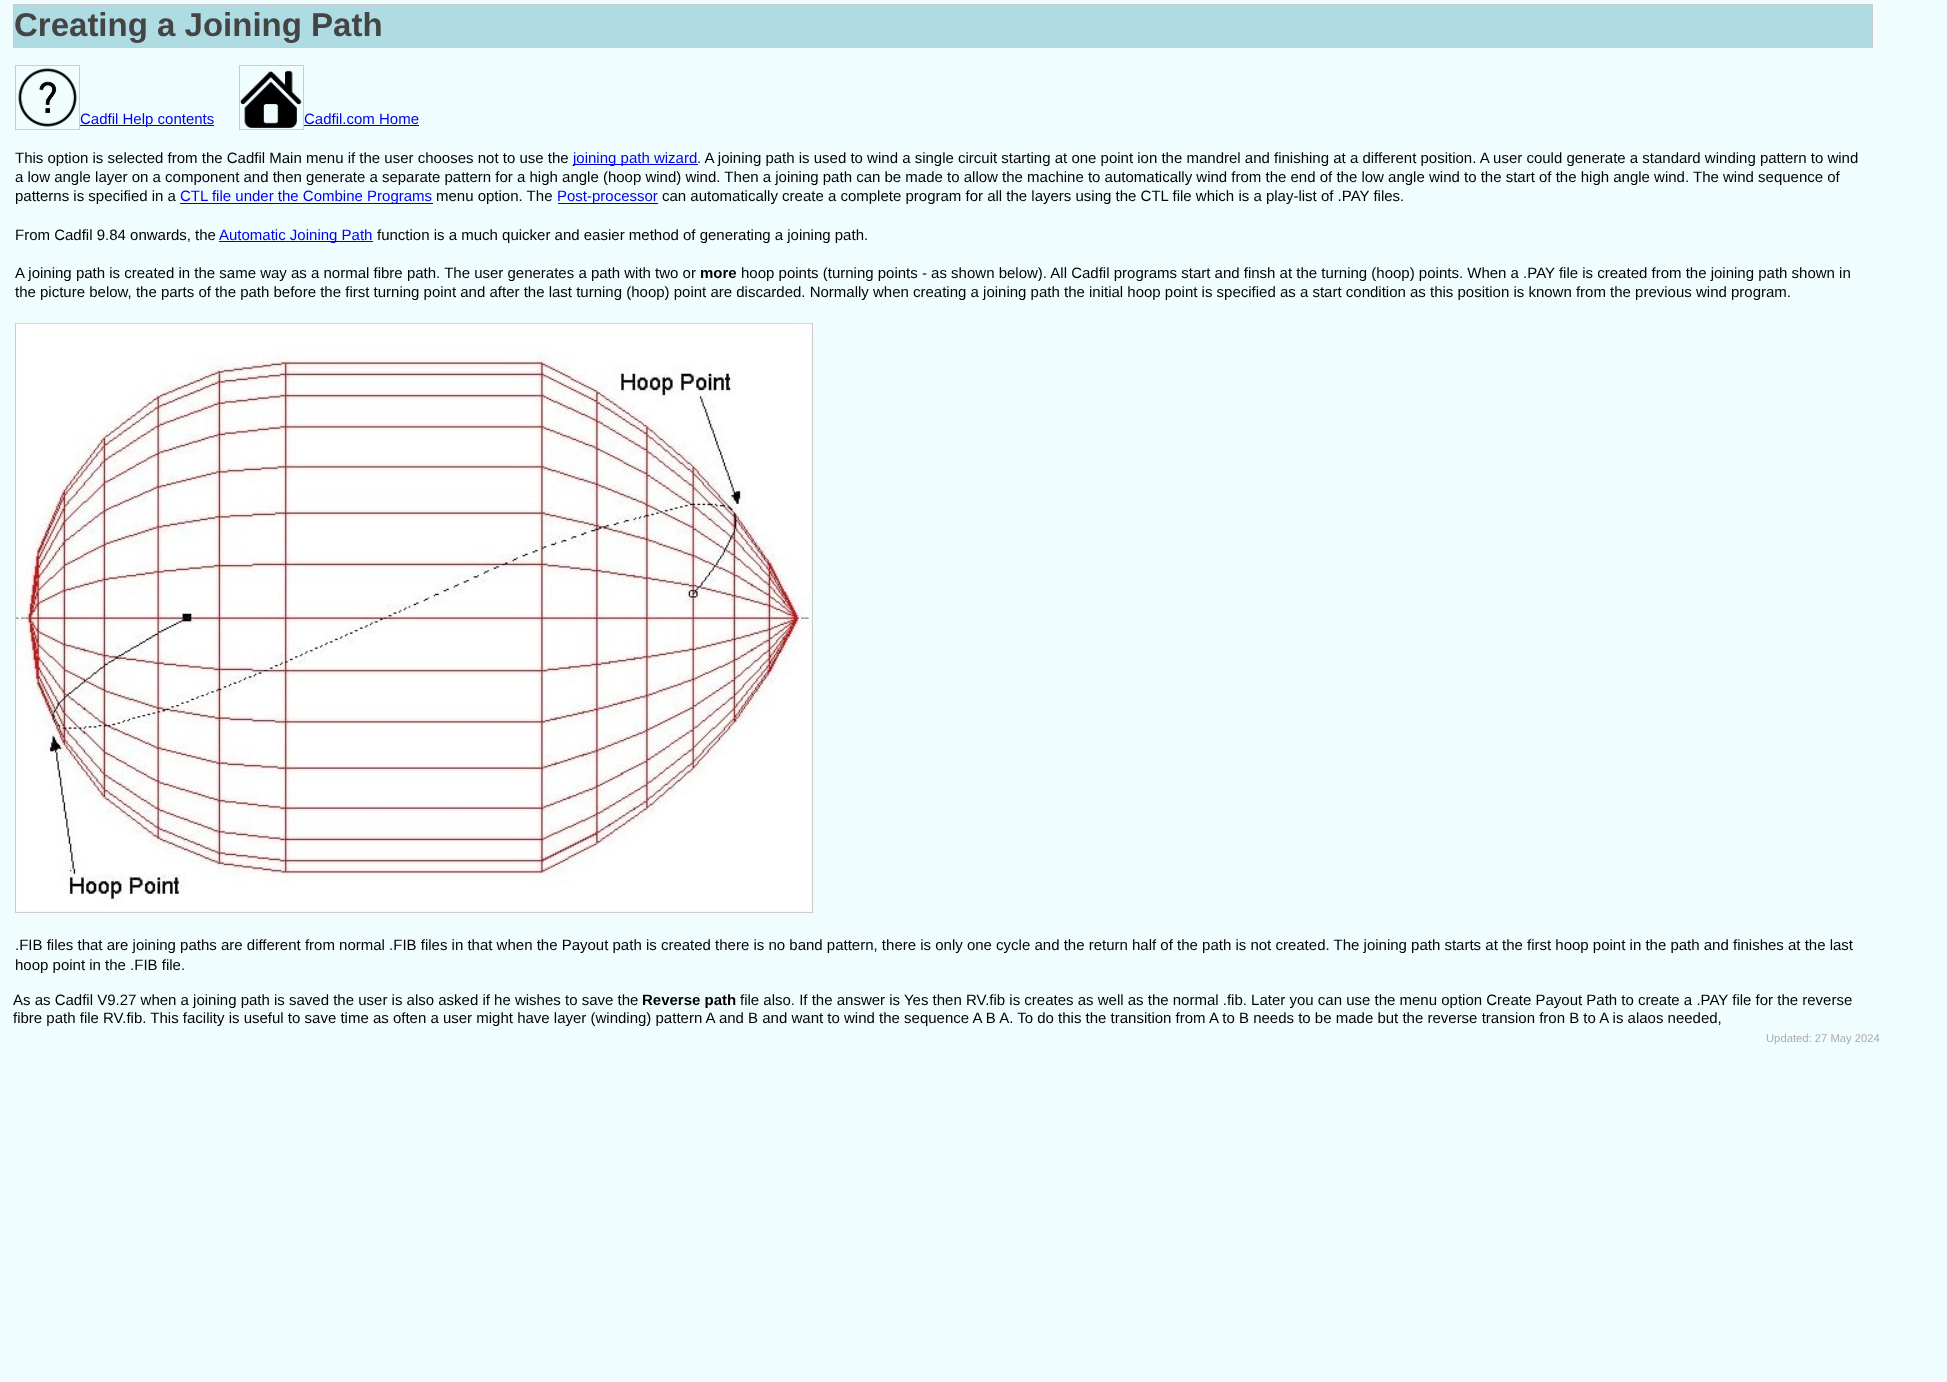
<svg xmlns="http://www.w3.org/2000/svg" width="1947" height="1382" viewBox="0 0 1947 1382">
  <rect width="100%" height="100%" fill="rgb(240,253,255)"/>
  <rect x="13.5" y="4.5" width="1859" height="43" fill="rgb(175,220,227)" stroke="rgb(204,204,204)"/>
  <text x="14" y="36" font-family="Liberation Sans" font-size="33" font-weight="bold" fill="rgb(68,68,68)">Creating a Joining Path</text>
  <rect x="15.5" y="65.5" width="64" height="64" fill="none" stroke="rgb(204,204,204)"/>
  <image x="18" y="68" width="59" height="59" href="pic1.png"/>
  <rect x="80" y="125" width="134" height="1" fill="rgb(0,0,238)"/>
  <text x="80" y="124" font-family="Liberation Sans" font-size="15" fill="rgb(0,0,238)">Cadfil Help contents</text>
  <rect x="239.5" y="65.5" width="64" height="64" fill="none" stroke="rgb(204,204,204)"/>
  <image x="240" y="70" width="62" height="58" href="pic2.png"/>
  <text x="304" y="124" font-family="Liberation Sans" font-size="15" fill="rgb(0,0,238)">Cadfil.com Home</text>
  <rect x="304" y="125" width="115" height="1" fill="rgb(0,0,238)"/>
  <text x="15" y="163" font-family="Liberation Sans" font-size="15" fill="rgb(0,0,0)">This option is selected from the Cadfil Main menu if the user chooses not to use the</text>
  <rect x="573" y="164" width="125" height="1" fill="rgb(0,0,238)"/>
  <text x="573" y="163" font-family="Liberation Sans" font-size="15" fill="rgb(0,0,238)">joining path wizard</text>
  <g font-family="Liberation Sans" font-size="15" fill="rgb(0,0,0)">
    <text x="697" y="163">. A joining path is used to wind a single circuit starting at one point ion the mandrel and finishing at a different position. A user could generate a standard winding pattern to wind</text>
    <text>
      <tspan x="15" y="182">a low angle layer on a component and then generate a separate pattern for a high angle (hoop wind) wind. Then a joining path can be made to allow the machine to automatically wind from the end of the low angle wind to the start of the high angle wind. The wind sequence of</tspan>
      <tspan x="15" y="201">patterns is specified in a</tspan>
    </text>
  </g>
  <rect x="180" y="203" width="253" height="1" fill="rgb(0,0,238)"/>
  <text x="180" y="201" font-family="Liberation Sans" font-size="15" fill="rgb(0,0,238)">CTL file under the Combine Programs</text>
  <text x="436" y="201" font-family="Liberation Sans" font-size="15" fill="rgb(0,0,0)">menu option. The</text>
  <rect x="558" y="203" width="100" height="1" fill="rgb(0,0,238)"/>
  <text x="557" y="201" font-family="Liberation Sans" font-size="15" fill="rgb(0,0,238)">Post-processor</text>
  <g font-family="Liberation Sans" font-size="15" fill="rgb(0,0,0)">
    <text x="662" y="201">can automatically create a complete program for all the layers using the CTL file which is a play-list of .PAY files.</text>
    <text x="15" y="240">From Cadfil 9.84 onwards, the</text>
  </g>
  <rect x="219" y="241" width="154" height="1" fill="rgb(0,0,238)"/>
  <text x="219" y="240" font-family="Liberation Sans" font-size="15" fill="rgb(0,0,238)">Automatic Joining Path</text>
  <g font-family="Liberation Sans" font-size="15" fill="rgb(0,0,0)">
    <text x="377" y="240">function is a much quicker and easier method of generating a joining path.</text>
    <text x="15" y="278">A joining path is created in the same way as a normal fibre path. The user generates a path with two or</text>
  </g>
  <text x="700" y="278" font-family="Liberation Sans" font-size="15" font-weight="bold" fill="rgb(0,0,0)">more</text>
  <g font-family="Liberation Sans" font-size="15" fill="rgb(0,0,0)">
    <text x="741" y="278">hoop points (turning points - as shown below). All Cadfil programs start and finsh at the turning (hoop) points. When a .PAY file is created from the joining path shown in</text>
    <text x="15" y="297">the picture below, the parts of the path before the first turning point and after the last turning (hoop) point are discarded. Normally when creating a joining path the initial hoop point is specified as a start condition as this position is known from the previous wind program.</text>
  </g>
  <rect x="15.5" y="323.5" width="797" height="589" fill="none" stroke="rgb(204,204,204)"/>
  <image x="16" y="323" width="795" height="588" href="pic3.png"/>
  <g font-family="Liberation Sans" font-size="15" fill="rgb(0,0,0)">
    <text>
      <tspan x="15" y="950">.FIB files that are joining paths are different from normal .FIB files in that when the Payout path is created there is no band pattern, there is only one cycle and the return half of the path is not created. The joining path starts at the first hoop point in the path and finishes at the last</tspan>
      <tspan x="15" y="970">hoop point in the .FIB file.</tspan>
    </text>
    <text x="13" y="1005">As as Cadfil V9.27 when a joining path is saved the user is also asked if he wishes to save the</text>
  </g>
  <text x="642" y="1005" font-family="Liberation Sans" font-size="15" font-weight="bold" fill="rgb(0,0,0)">Reverse path</text>
  <g font-family="Liberation Sans" font-size="15" fill="rgb(0,0,0)">
    <text x="740" y="1005">file also. If the answer is Yes then RV.fib is creates as well as the normal .fib. Later you can use the menu option Create Payout Path to create a .PAY file for the reverse</text>
    <text x="13" y="1023">fibre path file RV.fib. This facility is useful to save time as often a user might have layer (winding) pattern A and B and want to wind the sequence A B A. To do this the transition from A to B needs to be made but the reverse transion fron B to A is alaos needed,</text>
  </g>
  <text x="1766" y="1042" font-family="Liberation Sans" font-size="11.25" fill="rgb(170,170,170)">Updated: 27 May 2024</text>
</svg>
